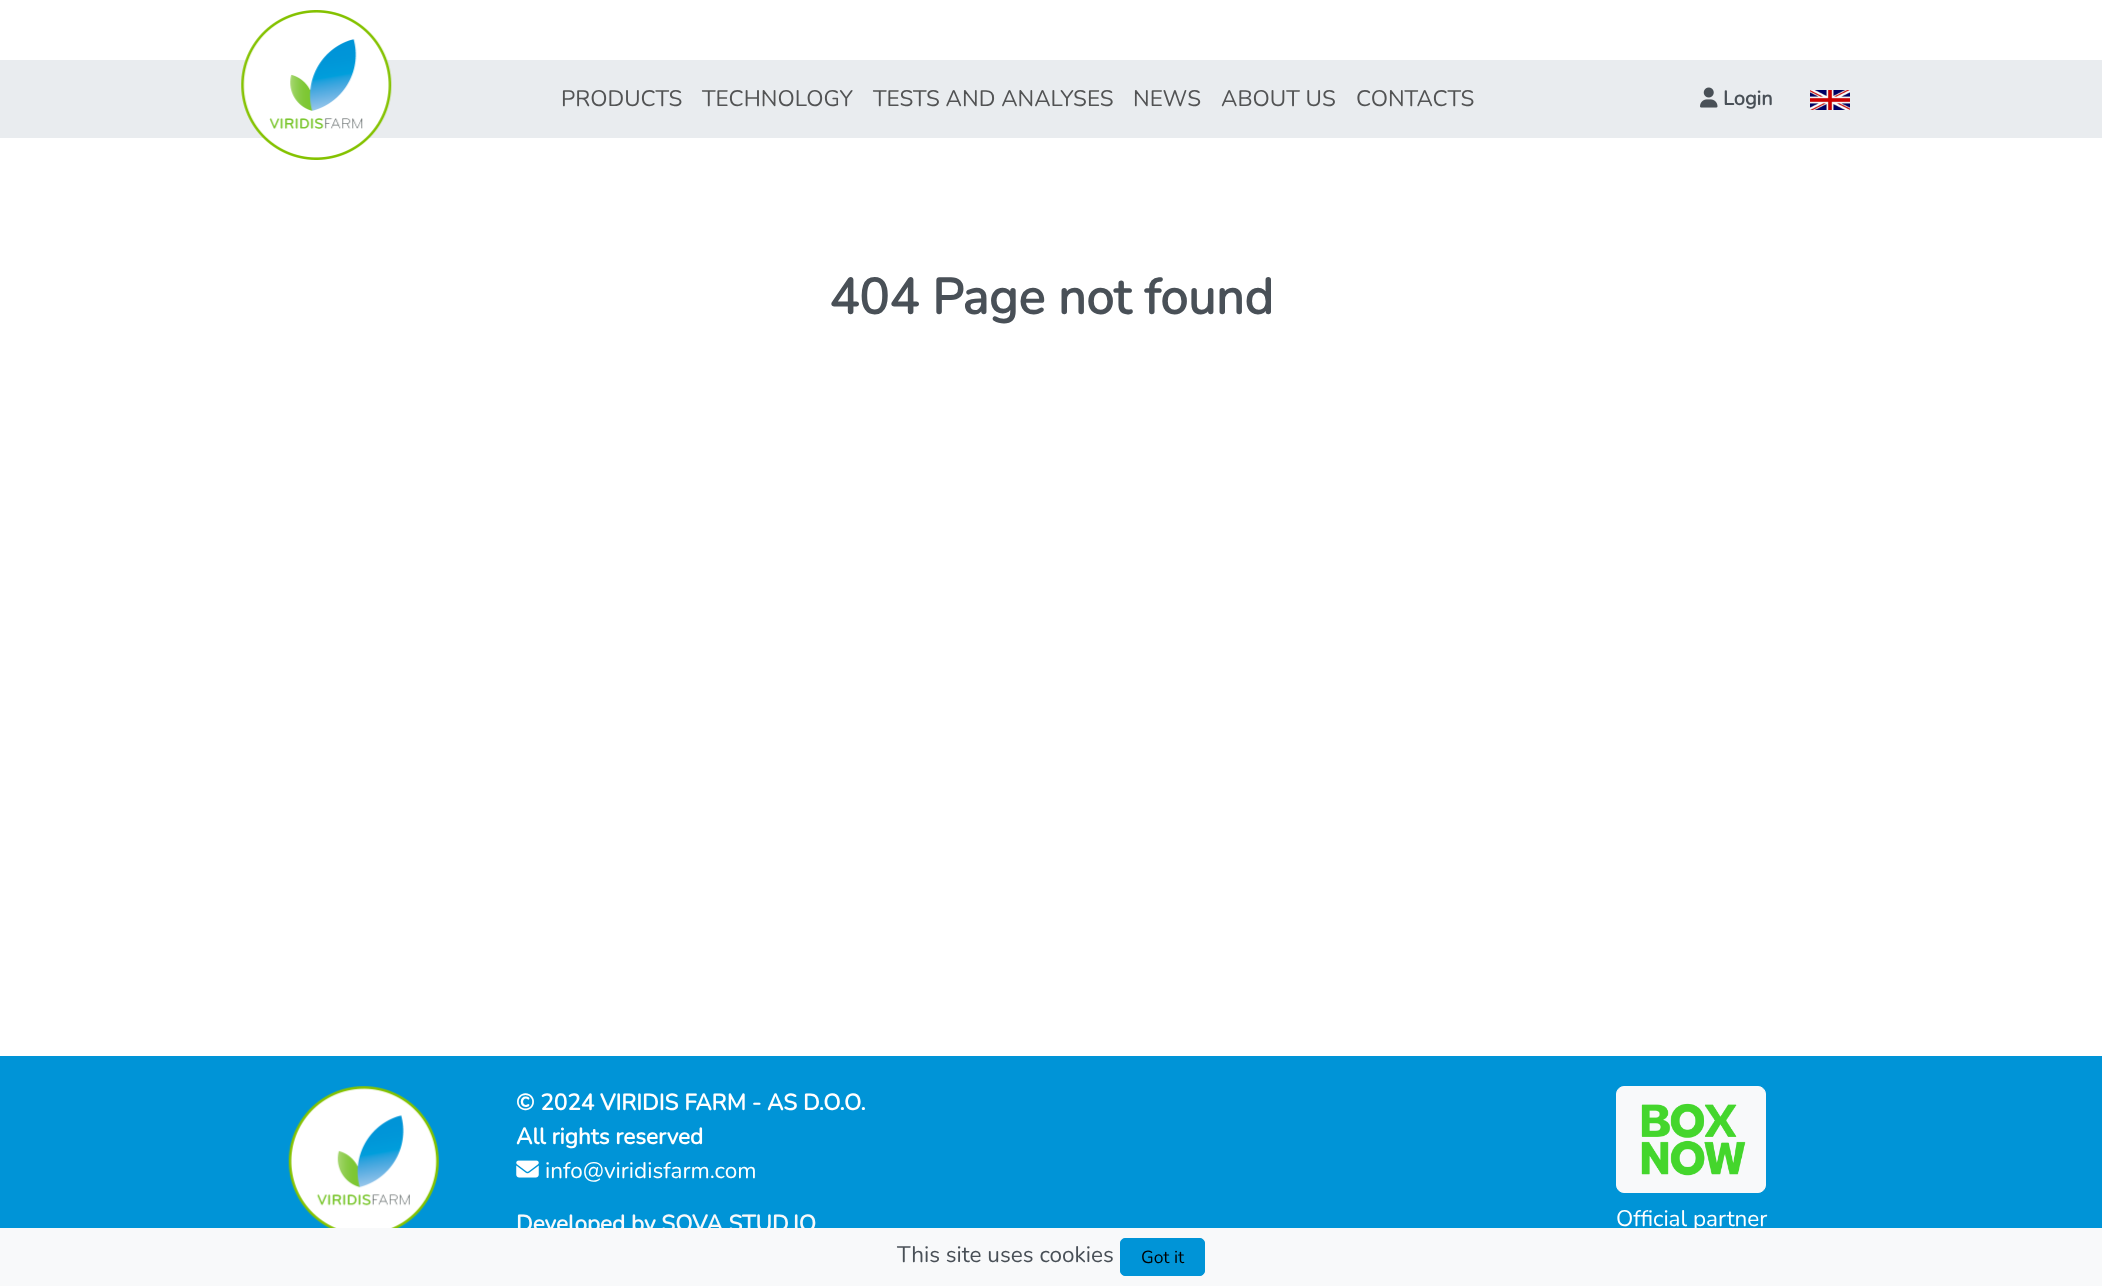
<svg xmlns="http://www.w3.org/2000/svg" width="2102" height="1286" viewBox="0 0 2102 1286">
  <rect width="100%" height="100%" fill="rgb(255,255,255)"/>
  <rect x="0" y="60" width="2102" height="78" fill="rgb(233,236,239)"/>
  <image x="241" y="10" width="151" height="150" href="pic1.png"/>
  <g font-family="Nunito" font-size="22.5" fill="rgb(82,83,84)">
    <text x="561" y="106">PRODUCTS</text>
    <text x="702" y="106">TECHNOLOGY</text>
    <text x="873" y="106">TESTS AND ANALYSES</text>
    <text x="1133" y="106">NEWS</text>
    <text x="1221" y="106">ABOUT US</text>
    <text x="1356" y="106">CONTACTS</text>
  </g>
  <image x="1700" y="87" width="18" height="21" href="pic2.png"/>
  <text x="1723" y="105" font-family="Nunito" font-size="20" font-weight="bold" fill="rgb(73,80,87)">Login</text>
  <image x="1810" y="90" width="40" height="20" href="pic3.png"/>
  <text x="829" y="314" font-family="Nunito" font-size="50" font-weight="bold" fill="rgb(73,80,87)">404 Page not found</text>
  <rect x="0" y="1056" width="2102" height="172" fill="rgb(0,148,215)"/>
  <image x="288" y="1086" width="151" height="142" href="pic4.png"/>
  <g font-family="Nunito" font-size="22.5" font-weight="bold" fill="rgb(255,255,255)">
    <text>
      <tspan x="516" y="1110">© 2024 VIRIDIS FARM - AS D.O.O.</tspan>
      <tspan x="516" y="1144">All rights reserved</tspan>
    </text>
  </g>
  <image x="516" y="1160" width="23" height="18" href="pic5.png"/>
  <text x="545" y="1178" font-family="Nunito" font-size="22.5" fill="rgb(255,255,255)">info@viridisfarm.com</text>
  <text x="516" y="1231" font-family="Nunito" font-size="22.5" font-weight="bold" fill="rgb(248,249,250)">Developed by SOVA STUD.IO</text>
  <rect x="1616.5" y="1086.5" width="149" height="106" rx="7.5" fill="rgb(248,249,250)" stroke="rgb(248,249,250)"/>
  <image x="1641" y="1103" width="105" height="73" href="pic6.png"/>
  <text x="1616" y="1226" font-family="Nunito" font-size="22.5" fill="rgb(255,255,255)">Official partner</text>
  <rect x="0" y="1228" width="2102" height="58" fill="rgb(248,249,250)"/>
  <text x="897" y="1262" font-family="Nunito" font-size="22.5" fill="rgb(73,80,87)">This site uses cookies</text>
  <rect x="1120.5" y="1238.5" width="84" height="37" rx="4.5" fill="rgb(0,148,215)" stroke="rgb(0,148,215)"/>
  <text x="1141" y="1263" font-family="Nunito" font-size="17.5" fill="rgb(0,0,0)">Got it</text>
</svg>
